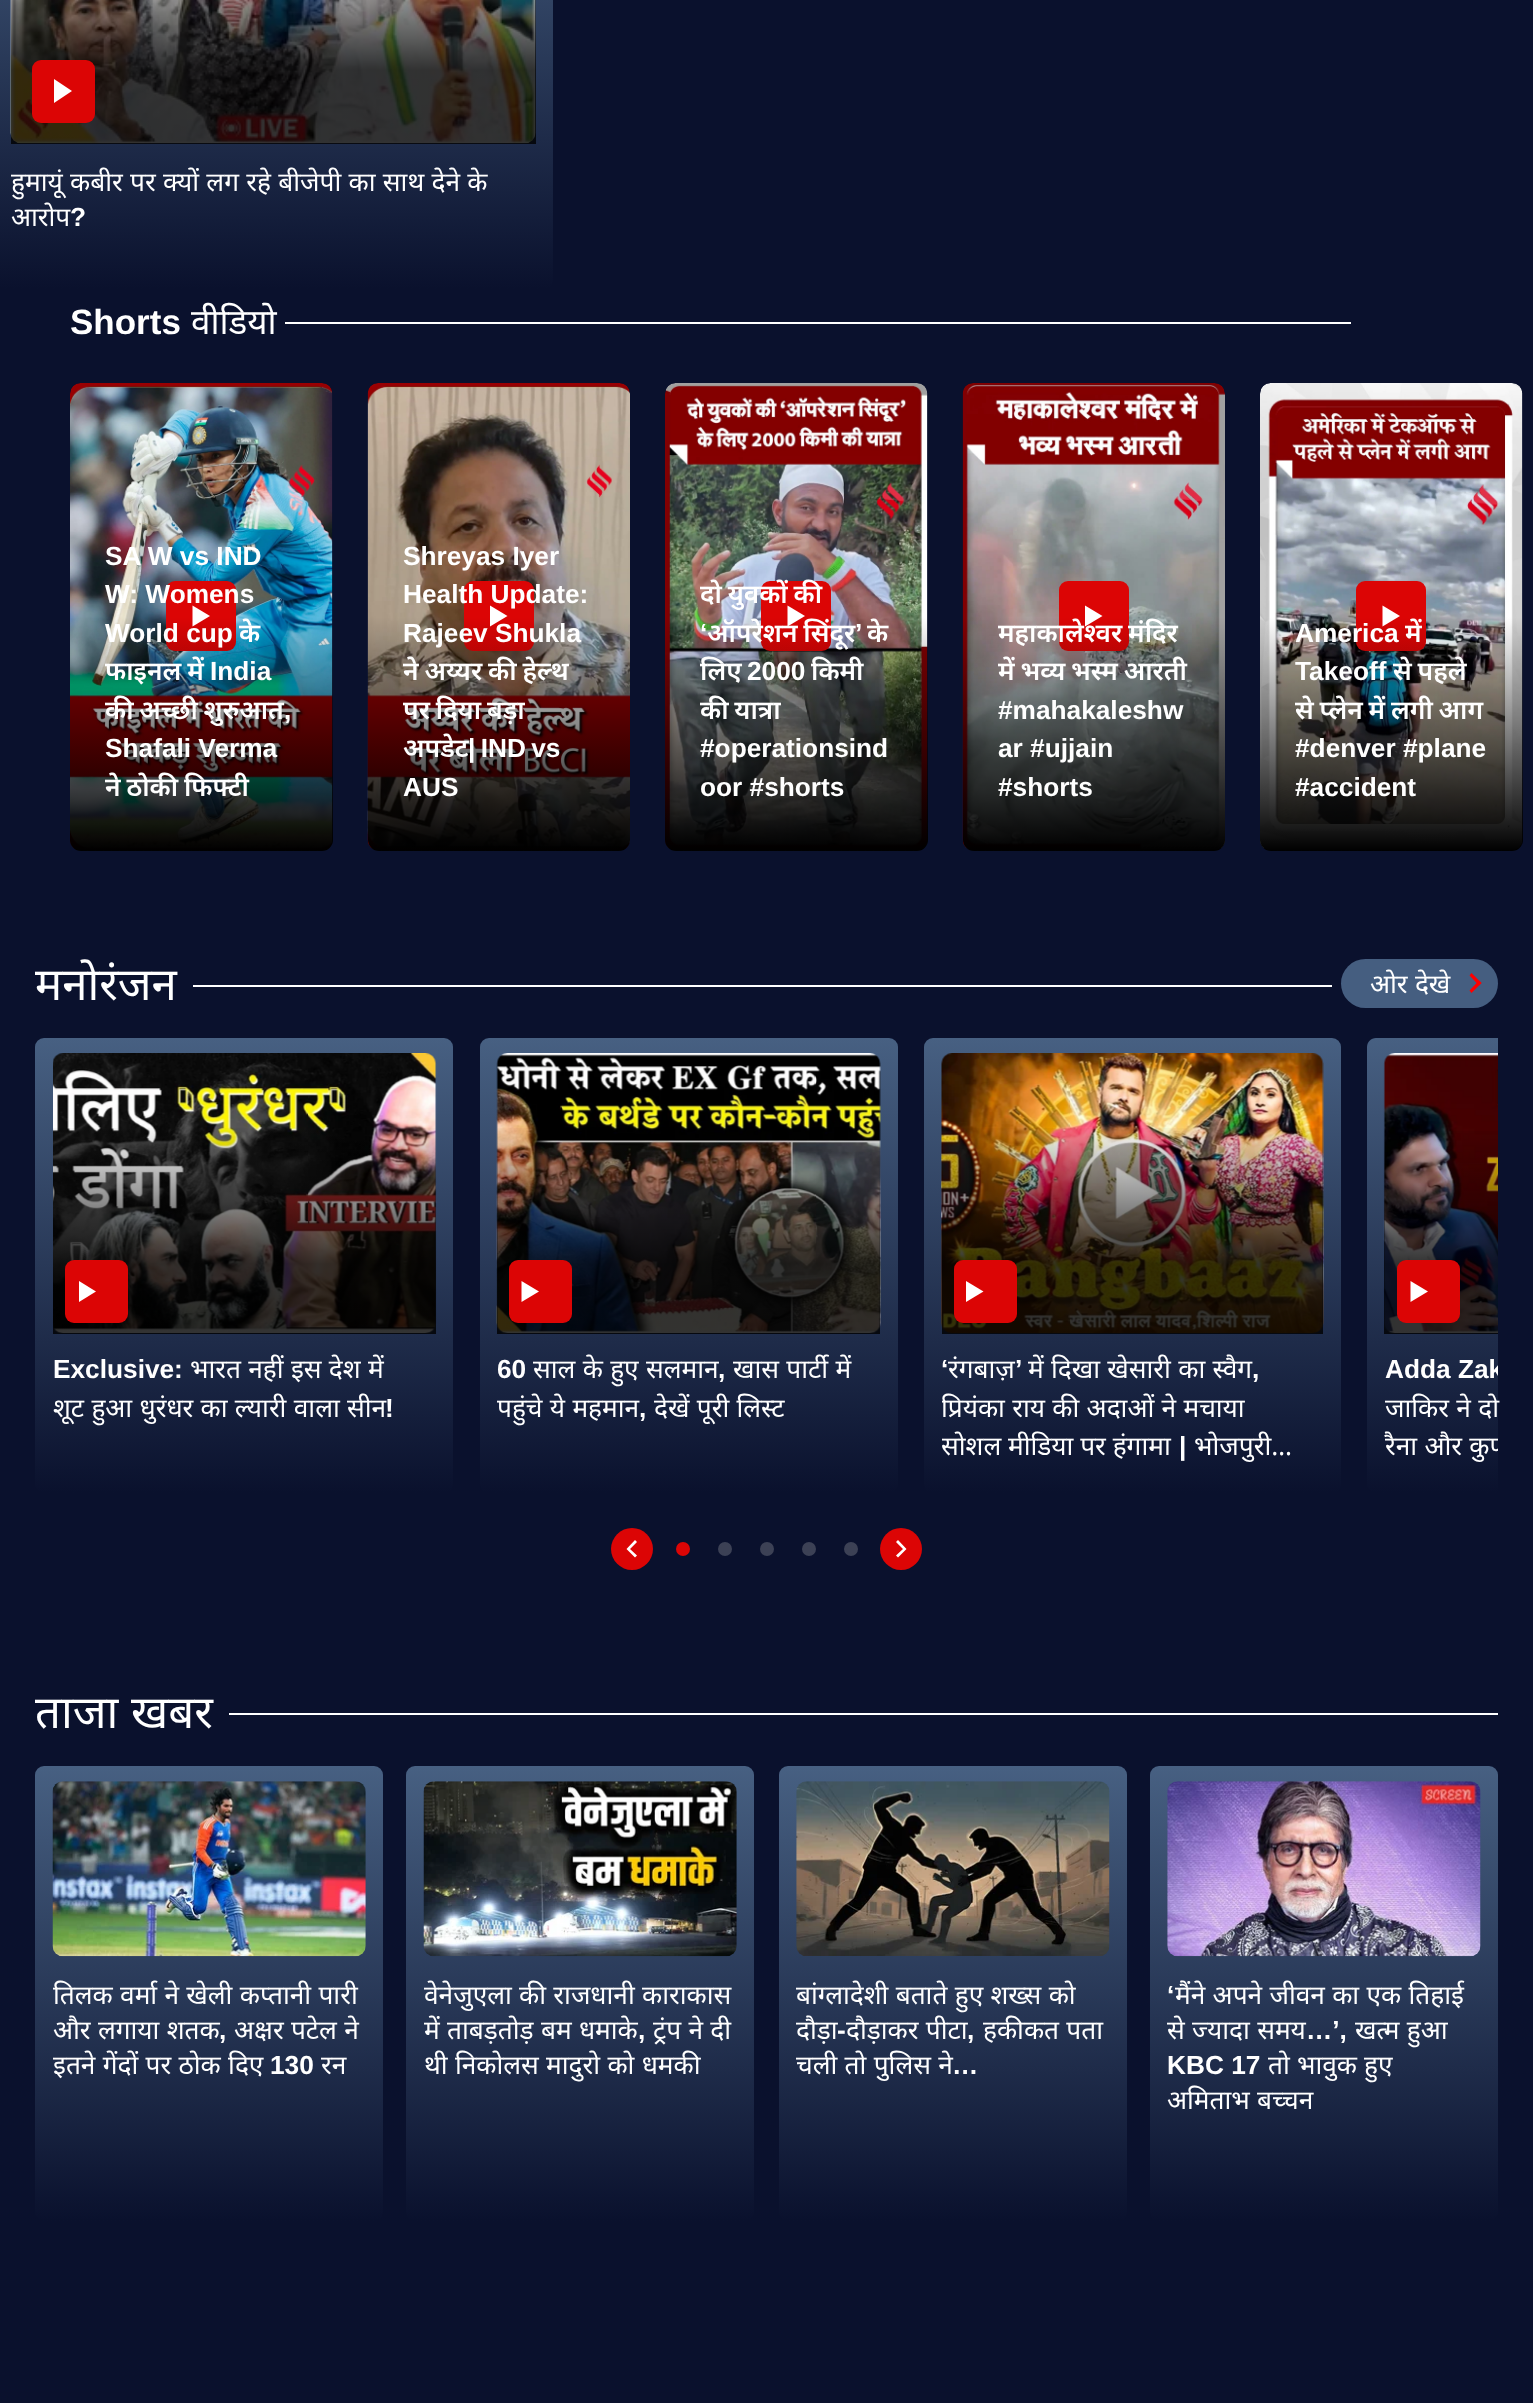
<svg xmlns="http://www.w3.org/2000/svg" width="1533" height="2403" viewBox="0 0 1533 2403">
  <defs>
    <linearGradient id="g1" gradientUnits="userSpaceOnUse" x1="273" y1="-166" x2="273" y2="289"><stop offset="0" stop-color="rgb(71,96,130)"/><stop offset="1" stop-color="rgb(10,17,45)"/></linearGradient>
    <linearGradient id="g2" gradientUnits="userSpaceOnUse" x1="273" y1="-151" x2="273" y2="144"><stop offset="0.25" stop-color="rgb(0,0,0)" stop-opacity="0"/><stop offset="0.75" stop-color="rgb(0,0,0)" stop-opacity="0.8"/></linearGradient>
    <linearGradient id="g3" gradientUnits="userSpaceOnUse" x1="201" y1="383" x2="201" y2="851"><stop offset="0" stop-color="rgb(0,0,0)" stop-opacity="0"/><stop offset="0.5" stop-color="rgb(0,0,0)" stop-opacity="0"/><stop offset="1" stop-color="rgb(0,0,0)"/></linearGradient>
    <linearGradient id="g4" gradientUnits="userSpaceOnUse" x1="499" y1="383" x2="499" y2="851"><stop offset="0" stop-color="rgb(0,0,0)" stop-opacity="0"/><stop offset="0.5" stop-color="rgb(0,0,0)" stop-opacity="0"/><stop offset="1" stop-color="rgb(0,0,0)"/></linearGradient>
    <linearGradient id="g5" gradientUnits="userSpaceOnUse" x1="796" y1="383" x2="796" y2="851"><stop offset="0" stop-color="rgb(0,0,0)" stop-opacity="0"/><stop offset="0.5" stop-color="rgb(0,0,0)" stop-opacity="0"/><stop offset="1" stop-color="rgb(0,0,0)"/></linearGradient>
    <linearGradient id="g6" gradientUnits="userSpaceOnUse" x1="1094" y1="383" x2="1094" y2="851"><stop offset="0" stop-color="rgb(0,0,0)" stop-opacity="0"/><stop offset="0.5" stop-color="rgb(0,0,0)" stop-opacity="0"/><stop offset="1" stop-color="rgb(0,0,0)"/></linearGradient>
    <linearGradient id="g7" gradientUnits="userSpaceOnUse" x1="1391" y1="383" x2="1391" y2="851"><stop offset="0" stop-color="rgb(0,0,0)" stop-opacity="0"/><stop offset="0.5" stop-color="rgb(0,0,0)" stop-opacity="0"/><stop offset="1" stop-color="rgb(0,0,0)"/></linearGradient>
    <linearGradient id="g8" gradientUnits="userSpaceOnUse" x1="244" y1="1038" x2="244" y2="1493"><stop offset="0" stop-color="rgb(71,96,130)"/><stop offset="1" stop-color="rgb(10,17,45)"/></linearGradient>
    <linearGradient id="g9" gradientUnits="userSpaceOnUse" x1="244" y1="1054" x2="244" y2="1334"><stop offset="0.25" stop-color="rgb(0,0,0)" stop-opacity="0"/><stop offset="0.75" stop-color="rgb(0,0,0)" stop-opacity="0.8"/></linearGradient>
    <clipPath id="clip1"><rect x="53" y="1351" width="362" height="77"/></clipPath>
    <linearGradient id="g10" gradientUnits="userSpaceOnUse" x1="689" y1="1038" x2="689" y2="1493"><stop offset="0" stop-color="rgb(71,96,130)"/><stop offset="1" stop-color="rgb(10,17,45)"/></linearGradient>
    <linearGradient id="g11" gradientUnits="userSpaceOnUse" x1="689" y1="1054" x2="689" y2="1334"><stop offset="0.25" stop-color="rgb(0,0,0)" stop-opacity="0"/><stop offset="0.75" stop-color="rgb(0,0,0)" stop-opacity="0.8"/></linearGradient>
    <clipPath id="clip2"><rect x="497" y="1351" width="362" height="77"/></clipPath>
    <linearGradient id="g12" gradientUnits="userSpaceOnUse" x1="1132" y1="1038" x2="1132" y2="1493"><stop offset="0" stop-color="rgb(71,96,130)"/><stop offset="1" stop-color="rgb(10,17,45)"/></linearGradient>
    <linearGradient id="g13" gradientUnits="userSpaceOnUse" x1="1132" y1="1054" x2="1132" y2="1334"><stop offset="0.25" stop-color="rgb(0,0,0)" stop-opacity="0"/><stop offset="0.75" stop-color="rgb(0,0,0)" stop-opacity="0.8"/></linearGradient>
    <clipPath id="clip3"><rect x="942" y="1351" width="360" height="116"/></clipPath>
    <linearGradient id="g14" gradientUnits="userSpaceOnUse" x1="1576" y1="1038" x2="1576" y2="1493"><stop offset="0" stop-color="rgb(71,96,130)"/><stop offset="1" stop-color="rgb(10,17,45)"/></linearGradient>
    <linearGradient id="g15" gradientUnits="userSpaceOnUse" x1="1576" y1="1054" x2="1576" y2="1334"><stop offset="0.25" stop-color="rgb(0,0,0)" stop-opacity="0"/><stop offset="0.75" stop-color="rgb(0,0,0)" stop-opacity="0.8"/></linearGradient>
    <clipPath id="clip4"><rect x="1384" y="1351" width="114" height="116"/></clipPath>
    <linearGradient id="g16" gradientUnits="userSpaceOnUse" x1="209" y1="1766" x2="209" y2="2221"><stop offset="0" stop-color="rgb(71,96,130)"/><stop offset="1" stop-color="rgb(10,17,45)"/></linearGradient>
    <linearGradient id="g17" gradientUnits="userSpaceOnUse" x1="580" y1="1766" x2="580" y2="2221"><stop offset="0" stop-color="rgb(71,96,130)"/><stop offset="1" stop-color="rgb(10,17,45)"/></linearGradient>
    <linearGradient id="g18" gradientUnits="userSpaceOnUse" x1="953" y1="1766" x2="953" y2="2221"><stop offset="0" stop-color="rgb(71,96,130)"/><stop offset="1" stop-color="rgb(10,17,45)"/></linearGradient>
    <linearGradient id="g19" gradientUnits="userSpaceOnUse" x1="1324" y1="1766" x2="1324" y2="2221"><stop offset="0" stop-color="rgb(71,96,130)"/><stop offset="1" stop-color="rgb(10,17,45)"/></linearGradient>
  </defs>
  <rect width="100%" height="100%" fill="rgb(10,17,45)"/>
  <rect x="-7" y="-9" width="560" height="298" rx="9" fill="url(#g1)"/>
  <image x="10" y="0" width="526" height="144" href="pic1.png"/>
  <rect x="11" y="0" width="525" height="144" fill="url(#g2)"/>
  <rect x="32" y="60" width="63" height="63" rx="9" fill="rgb(220,5,5)"/>
  <path d="M54 103V79L72 91Z" fill="rgb(255,255,255)"/>
  <g font-family="Noto Sans" font-size="26.25" fill="rgb(255,255,255)">
    <text>
      <tspan x="11" y="191" word-spacing="0.5">हुमायूं कबीर पर क्यों लग रहे बीजेपी का साथ देने के</tspan>
      <tspan x="11" y="226">आरोप</tspan>
    </text>
  </g>
  <text x="70" y="226" font-family="Liberation Sans" font-size="26.25" font-weight="bold" fill="rgb(255,255,255)">?</text>
  <text x="70" y="334" font-family="Liberation Sans" font-size="35" font-weight="bold" fill="rgb(255,255,255)">Shorts</text>
  <text x="191" y="334" font-family="Noto Sans" font-size="35" fill="rgb(255,255,255)">वीडियो</text>
  <rect x="285" y="322" width="1066" height="2" fill="rgb(255,255,255)"/>
  <image x="70" y="383" width="263" height="467" href="pic2.png"/>
  <rect x="166" y="581" width="70" height="70" rx="9" fill="rgb(220,5,5)"/>
  <rect x="70" y="383" width="263" height="468" rx="11" fill="url(#g3)"/>
  <path d="M192.5 626.5V605.5L210 616Z" fill="rgb(255,255,255)"/>
  <g font-family="Liberation Sans" font-size="26.25" font-weight="bold" fill="rgb(255,255,255)">
    <text>
      <tspan x="105" y="565">SA W vs IND</tspan>
      <tspan x="105" y="603">W: Womens</tspan>
      <tspan x="105" y="642">World cup</tspan>
    </text>
  </g>
  <g font-family="Noto Sans" font-size="26.25" font-weight="600" fill="rgb(255,255,255)">
    <text x="239" y="642">के</text>
    <text x="105" y="680" word-spacing="-1">फाइनल में</text>
  </g>
  <text x="210" y="680" font-family="Liberation Sans" font-size="26.25" font-weight="bold" fill="rgb(255,255,255)">India</text>
  <text x="105" y="719" word-spacing="-1" font-family="Noto Sans" font-size="26.25" font-weight="600" fill="rgb(255,255,255)">की अच्छी शुरुआत</text>
  <g font-family="Liberation Sans" font-size="26.25" font-weight="bold" fill="rgb(255,255,255)">
    <text x="284" y="719">,</text>
    <text x="105" y="757">Shafali Verma</text>
  </g>
  <text x="105" y="796" word-spacing="-1" font-family="Noto Sans" font-size="26.25" font-weight="600" fill="rgb(255,255,255)">ने ठोकी फिफ्टी</text>
  <image x="367" y="383" width="263" height="467" href="pic3.png"/>
  <rect x="464" y="581" width="70" height="70" rx="9" fill="rgb(220,5,5)"/>
  <rect x="368" y="383" width="262" height="468" rx="11" fill="url(#g4)"/>
  <path d="M490 626.5V605.5L507.5 616Z" fill="rgb(255,255,255)"/>
  <g font-family="Liberation Sans" font-size="26.25" font-weight="bold" fill="rgb(255,255,255)">
    <text>
      <tspan x="403" y="565">Shreyas Iyer</tspan>
      <tspan x="403" y="603">Health Update:</tspan>
      <tspan x="403" y="642">Rajeev Shukla</tspan>
    </text>
  </g>
  <g font-family="Noto Sans" font-size="26.25" font-weight="600" fill="rgb(255,255,255)">
    <text>
      <tspan x="403" y="680" word-spacing="-1">ने अय्यर की हेल्थ</tspan>
      <tspan x="403" y="719" word-spacing="-1">पर दिया बड़ा</tspan>
      <tspan x="403" y="757">अपडेट</tspan>
    </text>
  </g>
  <g font-family="Liberation Sans" font-size="26.25" font-weight="bold" fill="rgb(255,255,255)">
    <text x="468" y="757" word-spacing="-2">| IND vs</text>
    <text x="403" y="796">AUS</text>
  </g>
  <image x="665" y="383" width="263" height="467" href="pic4.png"/>
  <rect x="761" y="581" width="70" height="70" rx="9" fill="rgb(220,5,5)"/>
  <rect x="665" y="383" width="263" height="468" rx="11" fill="url(#g5)"/>
  <path d="M787.5 626.5V605.5L805 616Z" fill="rgb(255,255,255)"/>
  <text x="700" y="603" word-spacing="-1" font-family="Noto Sans" font-size="26.25" font-weight="600" fill="rgb(255,255,255)">दो युवकों की</text>
  <text x="700" y="642" font-family="Liberation Sans" font-size="26.25" font-weight="bold" fill="rgb(255,255,255)">‘</text>
  <text x="707" y="642" word-spacing="-1" font-family="Noto Sans" font-size="26.25" font-weight="600" fill="rgb(255,255,255)">ऑपरेशन सिंदूर</text>
  <text x="855" y="642" font-family="Liberation Sans" font-size="26.25" font-weight="bold" fill="rgb(255,255,255)">’</text>
  <g font-family="Noto Sans" font-size="26.25" font-weight="600" fill="rgb(255,255,255)">
    <text x="867" y="642">के</text>
    <text x="700" y="680">लिए</text>
  </g>
  <text x="747" y="680" font-family="Liberation Sans" font-size="26.25" font-weight="bold" fill="rgb(255,255,255)">2000</text>
  <g font-family="Noto Sans" font-size="26.25" font-weight="600" fill="rgb(255,255,255)">
    <text x="811" y="680">किमी</text>
    <text x="700" y="719" word-spacing="-1">की यात्रा</text>
  </g>
  <g font-family="Liberation Sans" font-size="26.25" font-weight="bold" fill="rgb(255,255,255)">
    <text>
      <tspan x="700" y="757">#operationsind</tspan>
      <tspan x="700" y="796">oor #shorts</tspan>
    </text>
  </g>
  <image x="962" y="383" width="263" height="467" href="pic5.png"/>
  <rect x="1059" y="581" width="70" height="70" rx="9" fill="rgb(220,5,5)"/>
  <rect x="963" y="383" width="262" height="468" rx="11" fill="url(#g6)"/>
  <path d="M1085 626.5V605.5L1102.5 616Z" fill="rgb(255,255,255)"/>
  <g font-family="Noto Sans" font-size="26.25" font-weight="600" fill="rgb(255,255,255)">
    <text>
      <tspan x="998" y="642" word-spacing="-1">महाकालेश्वर मंदिर</tspan>
      <tspan x="998" y="680" word-spacing="-1">में भव्य भस्म आरती</tspan>
    </text>
  </g>
  <g font-family="Liberation Sans" font-size="26.25" font-weight="bold" fill="rgb(255,255,255)">
    <text>
      <tspan x="998" y="719">#mahakaleshw</tspan>
      <tspan x="998" y="757">ar #ujjain</tspan>
      <tspan x="998" y="796">#shorts</tspan>
    </text>
  </g>
  <image x="1260" y="383" width="263" height="467" href="pic6.png"/>
  <rect x="1356" y="581" width="70" height="70" rx="9" fill="rgb(220,5,5)"/>
  <rect x="1260" y="383" width="263" height="468" rx="11" fill="url(#g7)"/>
  <path d="M1382.5 626.5V605.5L1400 616Z" fill="rgb(255,255,255)"/>
  <text x="1295" y="642" font-family="Liberation Sans" font-size="26.25" font-weight="bold" fill="rgb(255,255,255)">America</text>
  <text x="1405" y="642" font-family="Noto Sans" font-size="26.25" font-weight="600" fill="rgb(255,255,255)">में</text>
  <text x="1295" y="680" font-family="Liberation Sans" font-size="26.25" font-weight="bold" fill="rgb(255,255,255)">Takeoff</text>
  <g font-family="Noto Sans" font-size="26.25" font-weight="600" fill="rgb(255,255,255)">
    <text x="1393" y="680" word-spacing="-1">से पहले</text>
    <text x="1295" y="719" word-spacing="-1">से प्लेन में लगी आग</text>
  </g>
  <g font-family="Liberation Sans" font-size="26.25" font-weight="bold" fill="rgb(255,255,255)">
    <text>
      <tspan x="1295" y="757">#denver #plane</tspan>
      <tspan x="1295" y="796">#accident</tspan>
    </text>
  </g>
  <text x="35" y="1000" font-family="Noto Sans" font-size="45.5" fill="rgb(255,255,255)">मनोरंजन</text>
  <rect x="193" y="985" width="1139" height="2" fill="rgb(255,255,255)"/>
  <rect x="35" y="1038" width="418" height="455" rx="9" fill="url(#g8)"/>
  <image x="53" y="1053" width="384" height="280" href="pic7.png"/>
  <rect x="53" y="1128" width="383" height="206" fill="url(#g9)"/>
  <rect x="65" y="1260" width="63" height="63" rx="9" fill="rgb(220,5,5)"/>
  <path d="M79 1302V1281L96 1291.5Z" fill="rgb(255,255,255)"/>
  <text x="53" y="1378" font-family="Liberation Sans" font-size="26.25" font-weight="bold" fill="rgb(255,255,255)">Exclusive:</text>
  <text x="190" y="1378" word-spacing="0.5" font-family="Noto Sans" font-size="26.25" fill="rgb(255,255,255)">भारत नहीं इस देश में</text>
  <g clip-path="url(#clip1)">
    <text x="53" y="1417" word-spacing="0.5" font-family="Noto Sans" font-size="26.25" fill="rgb(255,255,255)">शूट हुआ धुरंधर का ल्यारी वाला सीन</text>
  </g>
  <text x="385" y="1417" font-family="Liberation Sans" font-size="26.25" font-weight="bold" fill="rgb(255,255,255)">!</text>
  <rect x="480" y="1038" width="418" height="455" rx="9" fill="url(#g10)"/>
  <image x="496" y="1053" width="385" height="280" href="pic8.png"/>
  <rect x="497" y="1128" width="383" height="206" fill="url(#g11)"/>
  <rect x="509" y="1260" width="63" height="63" rx="9" fill="rgb(220,5,5)"/>
  <path d="M521.5 1302V1281L539 1291.5Z" fill="rgb(255,255,255)"/>
  <text x="497" y="1378" font-family="Liberation Sans" font-size="26.25" font-weight="bold" fill="rgb(255,255,255)">60</text>
  <text x="533" y="1378" word-spacing="0.5" font-family="Noto Sans" font-size="26.25" fill="rgb(255,255,255)">साल के हुए सलमान</text>
  <text x="718" y="1378" font-family="Liberation Sans" font-size="26.25" font-weight="bold" fill="rgb(255,255,255)">,</text>
  <text x="733" y="1378" word-spacing="0.5" font-family="Noto Sans" font-size="26.25" fill="rgb(255,255,255)">खास पार्टी में</text>
  <g clip-path="url(#clip2)">
    <text x="497" y="1417" word-spacing="0.5" font-family="Noto Sans" font-size="26.25" fill="rgb(255,255,255)">पहुंचे ये महमान</text>
  </g>
  <text x="639" y="1417" font-family="Liberation Sans" font-size="26.25" font-weight="bold" fill="rgb(255,255,255)">,</text>
  <text x="654" y="1417" word-spacing="0.5" font-family="Noto Sans" font-size="26.25" fill="rgb(255,255,255)">देखें पूरी लिस्ट</text>
  <rect x="924" y="1038" width="417" height="455" rx="9" fill="url(#g12)"/>
  <image x="941" y="1053" width="383" height="280" href="pic9.png"/>
  <rect x="942" y="1128" width="381" height="206" fill="url(#g13)"/>
  <rect x="954" y="1260" width="63" height="63" rx="9" fill="rgb(220,5,5)"/>
  <path d="M966 1302V1281L983.5 1291.5Z" fill="rgb(255,255,255)"/>
  <text x="941" y="1378" font-family="Liberation Sans" font-size="26.25" font-weight="bold" fill="rgb(255,255,255)">‘</text>
  <text x="948" y="1378" font-family="Noto Sans" font-size="26.25" fill="rgb(255,255,255)">रंगबाज़</text>
  <text x="1015" y="1378" font-family="Liberation Sans" font-size="26.25" font-weight="bold" fill="rgb(255,255,255)">’</text>
  <text x="1028" y="1378" word-spacing="0.5" font-family="Noto Sans" font-size="26.25" fill="rgb(255,255,255)">में दिखा खेसारी का स्वैग</text>
  <text x="1252" y="1378" font-family="Liberation Sans" font-size="26.25" font-weight="bold" fill="rgb(255,255,255)">,</text>
  <g clip-path="url(#clip3)">
    <g font-family="Noto Sans" font-size="26.25" fill="rgb(255,255,255)">
      <text>
        <tspan x="941" y="1417" word-spacing="0.5">प्रियंका राय की अदाओं ने मचाया</tspan>
        <tspan x="941" y="1455">सोशल मीडिया पर हंगामा</tspan>
      </text>
    </g>
  </g>
  <text x="1179" y="1455" font-family="Liberation Sans" font-size="26.25" font-weight="bold" fill="rgb(255,255,255)">|</text>
  <text x="1194" y="1455" font-family="Noto Sans" font-size="26.25" fill="rgb(255,255,255)">भोजपुरी…</text>
  <path d="M1376 1038H1498V1493H1376C1371 1493 1367 1489 1367 1484V1047C1367 1042 1371 1038 1376 1038Z" fill="url(#g14)"/>
  <image x="1383" y="1053" width="115" height="280" href="pic10.png"/>
  <rect x="1384" y="1131" width="114" height="203" fill="url(#g15)"/>
  <rect x="1397" y="1260" width="63" height="63" rx="9" fill="rgb(220,5,5)"/>
  <path d="M1410.5 1302V1281L1428 1291.5Z" fill="rgb(255,255,255)"/>
  <g clip-path="url(#clip4)">
    <text x="1385" y="1378" font-family="Liberation Sans" font-size="26.25" font-weight="bold" fill="rgb(255,255,255)">Adda Zak</text>
  </g>
  <text x="1385" y="1417" word-spacing="0.5" font-family="Noto Sans" font-size="26.25" fill="rgb(255,255,255)">जाकिर ने दो</text>
  <g clip-path="url(#clip4)">
    <text x="1385" y="1455" word-spacing="0.5" font-family="Noto Sans" font-size="26.25" fill="rgb(255,255,255)">रैना और कुण</text>
  </g>
  <circle cx="632" cy="1549" r="21" fill="rgb(220,5,5)"/>
  <path d="M637 1542L630 1549L637 1555.5L635 1557.5L626.5 1549L635 1540Z" fill="rgb(255,255,255)"/>
  <circle cx="683" cy="1549" r="7" fill="rgb(220,5,5)"/>
  <circle cx="725" cy="1549" r="7" fill="rgb(60,65,85)"/>
  <circle cx="767" cy="1549" r="7" fill="rgb(60,65,85)"/>
  <circle cx="809" cy="1549" r="7" fill="rgb(60,65,85)"/>
  <circle cx="851" cy="1549" r="7" fill="rgb(60,65,85)"/>
  <circle cx="901" cy="1549" r="21" fill="rgb(220,5,5)"/>
  <path d="M896 1542L903 1549L896 1555.5L898 1557.5L906.5 1549L898 1540Z" fill="rgb(255,255,255)"/>
  <rect x="1341" y="959" width="157" height="49" rx="24.5" fill="rgb(69,94,128)"/>
  <text x="1370" y="993" word-spacing="0.5" font-family="Noto Sans" font-size="26.25" fill="rgb(255,255,255)">ओर देखे</text>
  <path d="M1481.5 983L1471.5 993L1469.5 990.5L1479 980.5Z" fill="rgb(255,0,0)"/>
  <path d="M1481.5 983L1479 985.5L1469.5 975.5L1471.5 973Z" fill="rgb(255,0,0)"/>
  <text x="35" y="1728" word-spacing="1" font-family="Noto Sans" font-size="45.5" fill="rgb(255,255,255)">ताजा खबर</text>
  <rect x="229" y="1713" width="1269" height="2" fill="rgb(255,255,255)"/>
  <rect x="35" y="1766" width="348" height="455" rx="9" fill="url(#g16)"/>
  <image x="52" y="1781" width="314" height="176" href="pic11.png"/>
  <g font-family="Noto Sans" font-size="26.25" fill="rgb(255,255,255)">
    <text>
      <tspan x="53" y="2004" word-spacing="0.5">तिलक वर्मा ने खेली कप्तानी पारी</tspan>
      <tspan x="53" y="2039" word-spacing="0.5">और लगाया शतक</tspan>
    </text>
  </g>
  <text x="219" y="2039" font-family="Liberation Sans" font-size="26.25" font-weight="bold" fill="rgb(255,255,255)">,</text>
  <g font-family="Noto Sans" font-size="26.25" fill="rgb(255,255,255)">
    <text x="234" y="2039" word-spacing="0.5">अक्षर पटेल ने</text>
    <text x="53" y="2074" word-spacing="0.5">इतने गेंदों पर ठोक दिए</text>
  </g>
  <text x="270" y="2074" font-family="Liberation Sans" font-size="26.25" font-weight="bold" fill="rgb(255,255,255)">130</text>
  <text x="321" y="2074" font-family="Noto Sans" font-size="26.25" fill="rgb(255,255,255)">रन</text>
  <rect x="406" y="1766" width="348" height="455" rx="9" fill="url(#g17)"/>
  <image x="423" y="1781" width="314" height="176" href="pic12.png"/>
  <g font-family="Noto Sans" font-size="26.25" fill="rgb(255,255,255)">
    <text>
      <tspan x="424" y="2004" word-spacing="0.5">वेनेजुएला की राजधानी काराकास</tspan>
      <tspan x="424" y="2039" word-spacing="0.5">में ताबड़तोड़ बम धमाके</tspan>
    </text>
  </g>
  <text x="638" y="2039" font-family="Liberation Sans" font-size="26.25" font-weight="bold" fill="rgb(255,255,255)">,</text>
  <g font-family="Noto Sans" font-size="26.25" fill="rgb(255,255,255)">
    <text x="653" y="2039" word-spacing="0.5">ट्रंप ने दी</text>
    <text x="424" y="2074" word-spacing="0.5">थी निकोलस मादुरो को धमकी</text>
  </g>
  <rect x="779" y="1766" width="348" height="455" rx="9" fill="url(#g18)"/>
  <image x="796" y="1781" width="314" height="175" href="pic13.png"/>
  <g font-family="Noto Sans" font-size="26.25" fill="rgb(255,255,255)">
    <text>
      <tspan x="796" y="2004" word-spacing="0.5">बांग्लादेशी बताते हुए शख्स को</tspan>
      <tspan x="796" y="2039">दौड़ा</tspan>
    </text>
  </g>
  <text x="837" y="2039" font-family="Liberation Sans" font-size="26.25" font-weight="bold" fill="rgb(255,255,255)">-</text>
  <g font-family="Noto Sans" font-size="26.25" fill="rgb(255,255,255)">
    <text x="846" y="2039" word-spacing="0.5">दौड़ाकर पीटा</text>
    <text x="983" y="2039" word-spacing="0.5">हकीकत पता</text>
  </g>
  <text x="967" y="2039" font-family="Liberation Sans" font-size="26.25" font-weight="bold" fill="rgb(255,255,255)">,</text>
  <text x="796" y="2074" word-spacing="0.5" font-family="Noto Sans" font-size="26.25" fill="rgb(255,255,255)">चली तो पुलिस ने</text>
  <text x="952" y="2074" font-family="Liberation Sans" font-size="26.25" font-weight="bold" fill="rgb(255,255,255)">…</text>
  <rect x="1150" y="1766" width="348" height="455" rx="9" fill="url(#g19)"/>
  <image x="1167" y="1781" width="314" height="176" href="pic14.png"/>
  <text x="1167" y="2004" font-family="Liberation Sans" font-size="26.25" font-weight="bold" fill="rgb(255,255,255)">‘</text>
  <g font-family="Noto Sans" font-size="26.25" fill="rgb(255,255,255)">
    <text x="1175" y="2004" word-spacing="0.5">मैंने अपने जीवन का एक तिहाई</text>
    <text x="1167" y="2039" word-spacing="0.5">से ज्यादा समय</text>
  </g>
  <text x="1306" y="2039" font-family="Liberation Sans" font-size="26.25" font-weight="bold" fill="rgb(255,255,255)">…’,</text>
  <text x="1355" y="2039" word-spacing="0.5" font-family="Noto Sans" font-size="26.25" fill="rgb(255,255,255)">खत्म हुआ</text>
  <text x="1167" y="2074" font-family="Liberation Sans" font-size="26.25" font-weight="bold" fill="rgb(255,255,255)">KBC 17</text>
  <g font-family="Noto Sans" font-size="26.25" fill="rgb(255,255,255)">
    <text x="1268" y="2074">तो</text>
    <text x="1297" y="2074">भावुक</text>
    <text x="1364" y="2074">हुए</text>
    <text x="1167" y="2109" word-spacing="0.5">अमिताभ बच्चन</text>
  </g>
</svg>
